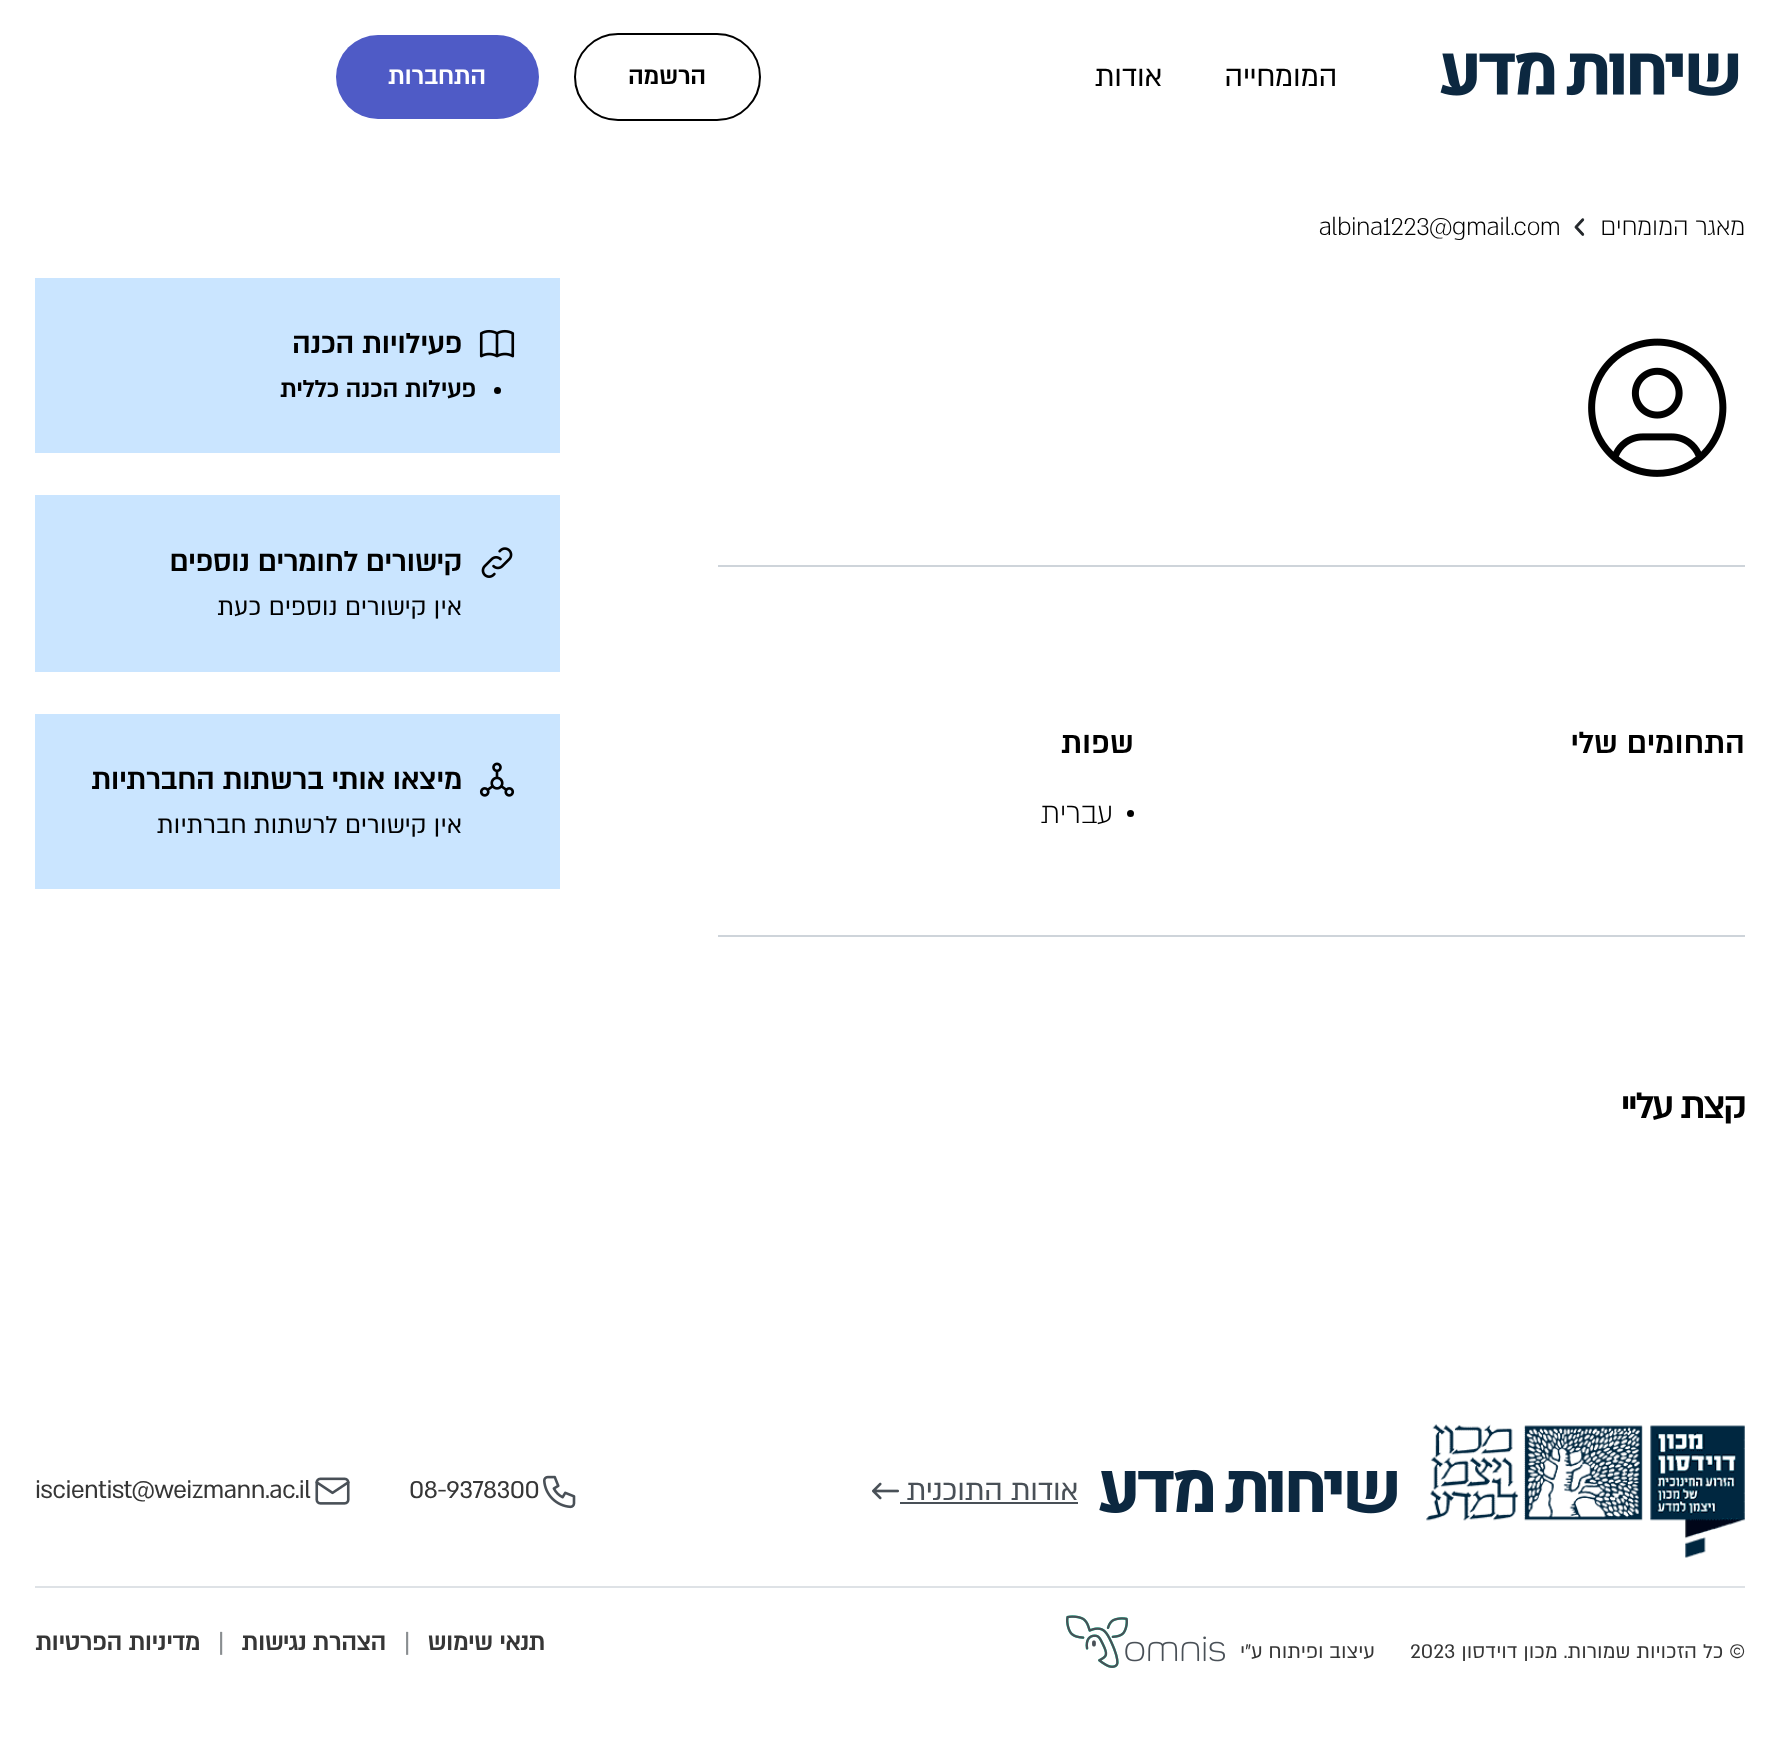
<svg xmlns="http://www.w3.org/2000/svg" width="1779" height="1738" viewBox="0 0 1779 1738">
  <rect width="100%" height="100%" fill="rgb(255,255,255)"/>
  <image x="1440" y="52" width="299" height="44" href="pic1.png"/>
  <g font-family="'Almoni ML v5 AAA'" font-size="33.25" letter-spacing="-0.5" direction="rtl" fill="rgb(0,0,0)">
    <text x="1337" y="86">המומחייה</text>
    <text x="1162" y="86">אודות</text>
  </g>
  <rect x="575" y="34" width="185" height="86" rx="43" fill="none" stroke="rgb(0,0,0)" stroke-width="2"/>
  <text x="706" y="84" font-family="'Almoni ML v5 AAA'" font-size="28" font-weight="bold" letter-spacing="-0.3" direction="rtl" fill="rgb(0,0,0)">הרשמה</text>
  <rect x="336" y="35" width="203" height="84" rx="42" fill="rgb(79,91,198)"/>
  <text x="486" y="84" font-family="'Almoni ML v5 AAA'" font-size="28" font-weight="bold" letter-spacing="-0.3" direction="rtl" fill="rgb(255,255,255)">התחברות</text>
  <text x="1745" y="235" font-family="'Almoni ML v5 AAA'" font-size="28" font-weight="300" letter-spacing="-0.5" direction="rtl" fill="rgb(0,0,0)">מאגר המומחים</text>
  <image x="1574" y="218" width="11" height="18" href="pic2.png"/>
  <text x="1319" y="235" font-family="'Almoni ML v5 AAA'" font-size="28" font-weight="300" letter-spacing="-0.5" fill="rgb(0,0,0)">albina1223@gmail.com</text>
  <rect x="35" y="278" width="525" height="175" fill="rgb(202,229,255)"/>
  <image x="479" y="329" width="36" height="29" href="pic3.png"/>
  <text x="462" y="353" font-family="'Almoni ML v5 AAA'" font-size="33.25" font-weight="bold" letter-spacing="-0.4" direction="rtl" fill="rgb(0,0,0)">פעילויות הכנה</text>
  <circle cx="497.5" cy="390.5" r="3.5" fill="rgb(0,0,0)"/>
  <text x="476" y="397" font-family="'Almoni ML v5 AAA'" font-size="28" font-weight="bold" letter-spacing="-0.3" direction="rtl" fill="rgb(0,0,0)">פעילות הכנה כללית</text>
  <rect x="35" y="495" width="525" height="177" fill="rgb(202,229,255)"/>
  <image x="481" y="547" width="32" height="31" href="pic4.png"/>
  <text x="462" y="571" font-family="'Almoni ML v5 AAA'" font-size="33.25" font-weight="bold" letter-spacing="-0.4" direction="rtl" fill="rgb(0,0,0)">קישורים לחומרים נוספים</text>
  <text x="462" y="615" font-family="'Almoni ML v5 AAA'" font-size="28" direction="rtl" fill="rgb(0,0,0)">אין קישורים נוספים כעת</text>
  <rect x="35" y="714" width="525" height="175" fill="rgb(202,229,255)"/>
  <image x="479" y="762" width="36" height="35" href="pic5.png"/>
  <text x="462" y="789" font-family="'Almoni ML v5 AAA'" font-size="33.25" font-weight="bold" letter-spacing="-0.4" direction="rtl" fill="rgb(0,0,0)">מיצאו אותי ברשתות החברתיות</text>
  <text x="462" y="833" font-family="'Almoni ML v5 AAA'" font-size="28" direction="rtl" fill="rgb(0,0,0)">אין קישורים לרשתות חברתיות</text>
  <rect x="718" y="565" width="1027" height="2" fill="rgb(206,212,218)"/>
  <image x="1588" y="338" width="139" height="139" href="pic6.png"/>
  <rect x="718" y="935" width="1027" height="2" fill="rgb(206,212,218)"/>
  <g font-family="'Almoni ML v5 AAA'" font-size="35" font-weight="bold" direction="rtl" fill="rgb(0,0,0)">
    <text x="1745" y="753">התחומים שלי</text>
    <text x="1134" y="753">שפות</text>
  </g>
  <circle cx="1130.5" cy="813.5" r="3.5" fill="rgb(0,0,0)"/>
  <text x="1113" y="823" font-family="'Almoni ML v5 AAA'" font-size="33.25" font-weight="300" letter-spacing="-0.5" direction="rtl" fill="rgb(0,0,0)">עברית</text>
  <text x="1745" y="1118" font-family="'Almoni ML v5 AAA'" font-size="42" font-weight="bold" letter-spacing="-2" direction="rtl" fill="rgb(0,0,0)">קצת עליי</text>
  <image x="1426" y="1424" width="319" height="134" href="pic7.png"/>
  <image x="1099" y="1469" width="298" height="45" href="pic8.png"/>
  <text x="1078" y="1500" font-family="'Almoni ML v5 AAA'" font-size="33.25" letter-spacing="-0.5" direction="rtl" fill="rgb(73,80,87)">אודות התוכנית</text>
  <rect x="900" y="1502" width="178" height="2" fill="rgb(73,80,87)"/>
  <image x="872" y="1482" width="27" height="18" href="pic9.png"/>
  <image x="543" y="1475" width="33" height="34" href="pic10.png"/>
  <text x="409" y="1498" font-family="'Almoni ML v5 AAA'" font-size="28" letter-spacing="-0.5" fill="rgb(54,54,54)">08-9378300</text>
  <image x="315" y="1477" width="35" height="28" href="pic11.png"/>
  <text x="35" y="1498" font-family="'Almoni ML v5 AAA'" font-size="28" letter-spacing="-0.5" fill="rgb(54,54,54)">iscientist@weizmann.ac.il</text>
  <rect x="35" y="1586" width="1710" height="2" fill="rgb(222,226,230)"/>
  <text x="1745" y="1658" font-family="'Almoni ML v5 AAA'" font-size="22.75" direction="rtl" fill="rgb(54,54,54)">© כל הזכויות שמורות. מכון דוידסון</text>
  <text x="1410" y="1658" font-family="'Almoni ML v5 AAA'" font-size="22.75" fill="rgb(54,54,54)">2023</text>
  <text x="1375" y="1658" font-family="'Almoni ML v5 AAA'" font-size="22.75" direction="rtl" fill="rgb(54,54,54)">עיצוב ופיתוח ע״י</text>
  <image x="1066" y="1615" width="159" height="53" href="pic12.png"/>
  <text x="545" y="1650" font-family="'Almoni ML v5 AAA'" font-size="28" font-weight="bold" letter-spacing="-0.5" direction="rtl" fill="rgb(54,54,54)">תנאי שימוש</text>
  <text x="404" y="1650" font-family="'Almoni ML v5 AAA'" font-size="28" fill="rgb(137,141,144)">|</text>
  <text x="386" y="1650" font-family="'Almoni ML v5 AAA'" font-size="28" font-weight="bold" letter-spacing="-0.5" direction="rtl" fill="rgb(54,54,54)">הצהרת נגישות</text>
  <text x="218" y="1650" font-family="'Almoni ML v5 AAA'" font-size="28" fill="rgb(137,141,144)">|</text>
  <text x="200" y="1650" font-family="'Almoni ML v5 AAA'" font-size="28" font-weight="bold" letter-spacing="-0.5" direction="rtl" fill="rgb(54,54,54)">מדיניות הפרטיות</text>
</svg>
